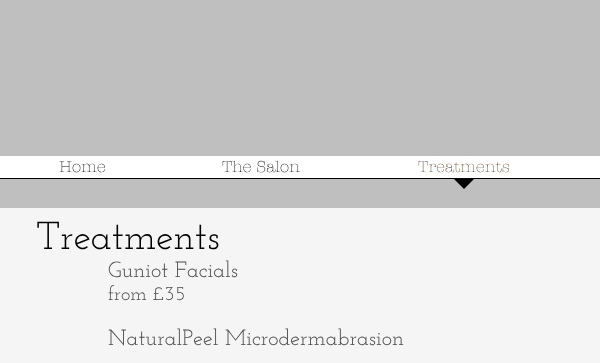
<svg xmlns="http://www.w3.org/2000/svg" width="600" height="363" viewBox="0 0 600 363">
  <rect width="100%" height="100%" fill="rgb(191,191,191)"/>
  <rect x="0" y="156" width="600" height="22" fill="rgb(255,255,255)"/>
  <rect x="0" y="178" width="600" height="1" fill="rgb(0,0,0)"/>
  <g font-family="'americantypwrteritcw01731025'" font-size="16" font-weight="300" fill="rgb(0,0,0)">
    <text x="59" y="172">Home</text>
    <text x="222" y="172">The Salon</text>
  </g>
  <text x="418" y="172" font-family="'americantypwrteritcw01731025'" font-size="16" font-weight="300" fill="rgb(94,60,23)">Treatments</text>
  <path d="M453 178H475L464 189Z" fill="rgb(0,0,0)"/>
  <rect x="0" y="208" width="600" height="155" fill="rgb(245,245,245)"/>
  <text x="36" y="249" font-family="Josefin Slab" font-size="39" fill="rgb(0,0,0)">Treatments</text>
  <text x="108" y="277" font-family="Josefin Slab" font-size="22" fill="rgb(76,76,76)">Guniot Facials</text>
  <text x="108" y="300" font-family="Josefin Slab" font-size="20" fill="rgb(76,76,76)">from £35</text>
  <text x="108" y="345" font-family="Josefin Slab" font-size="22" fill="rgb(76,76,76)">NaturalPeel Microdermabrasion</text>
</svg>
